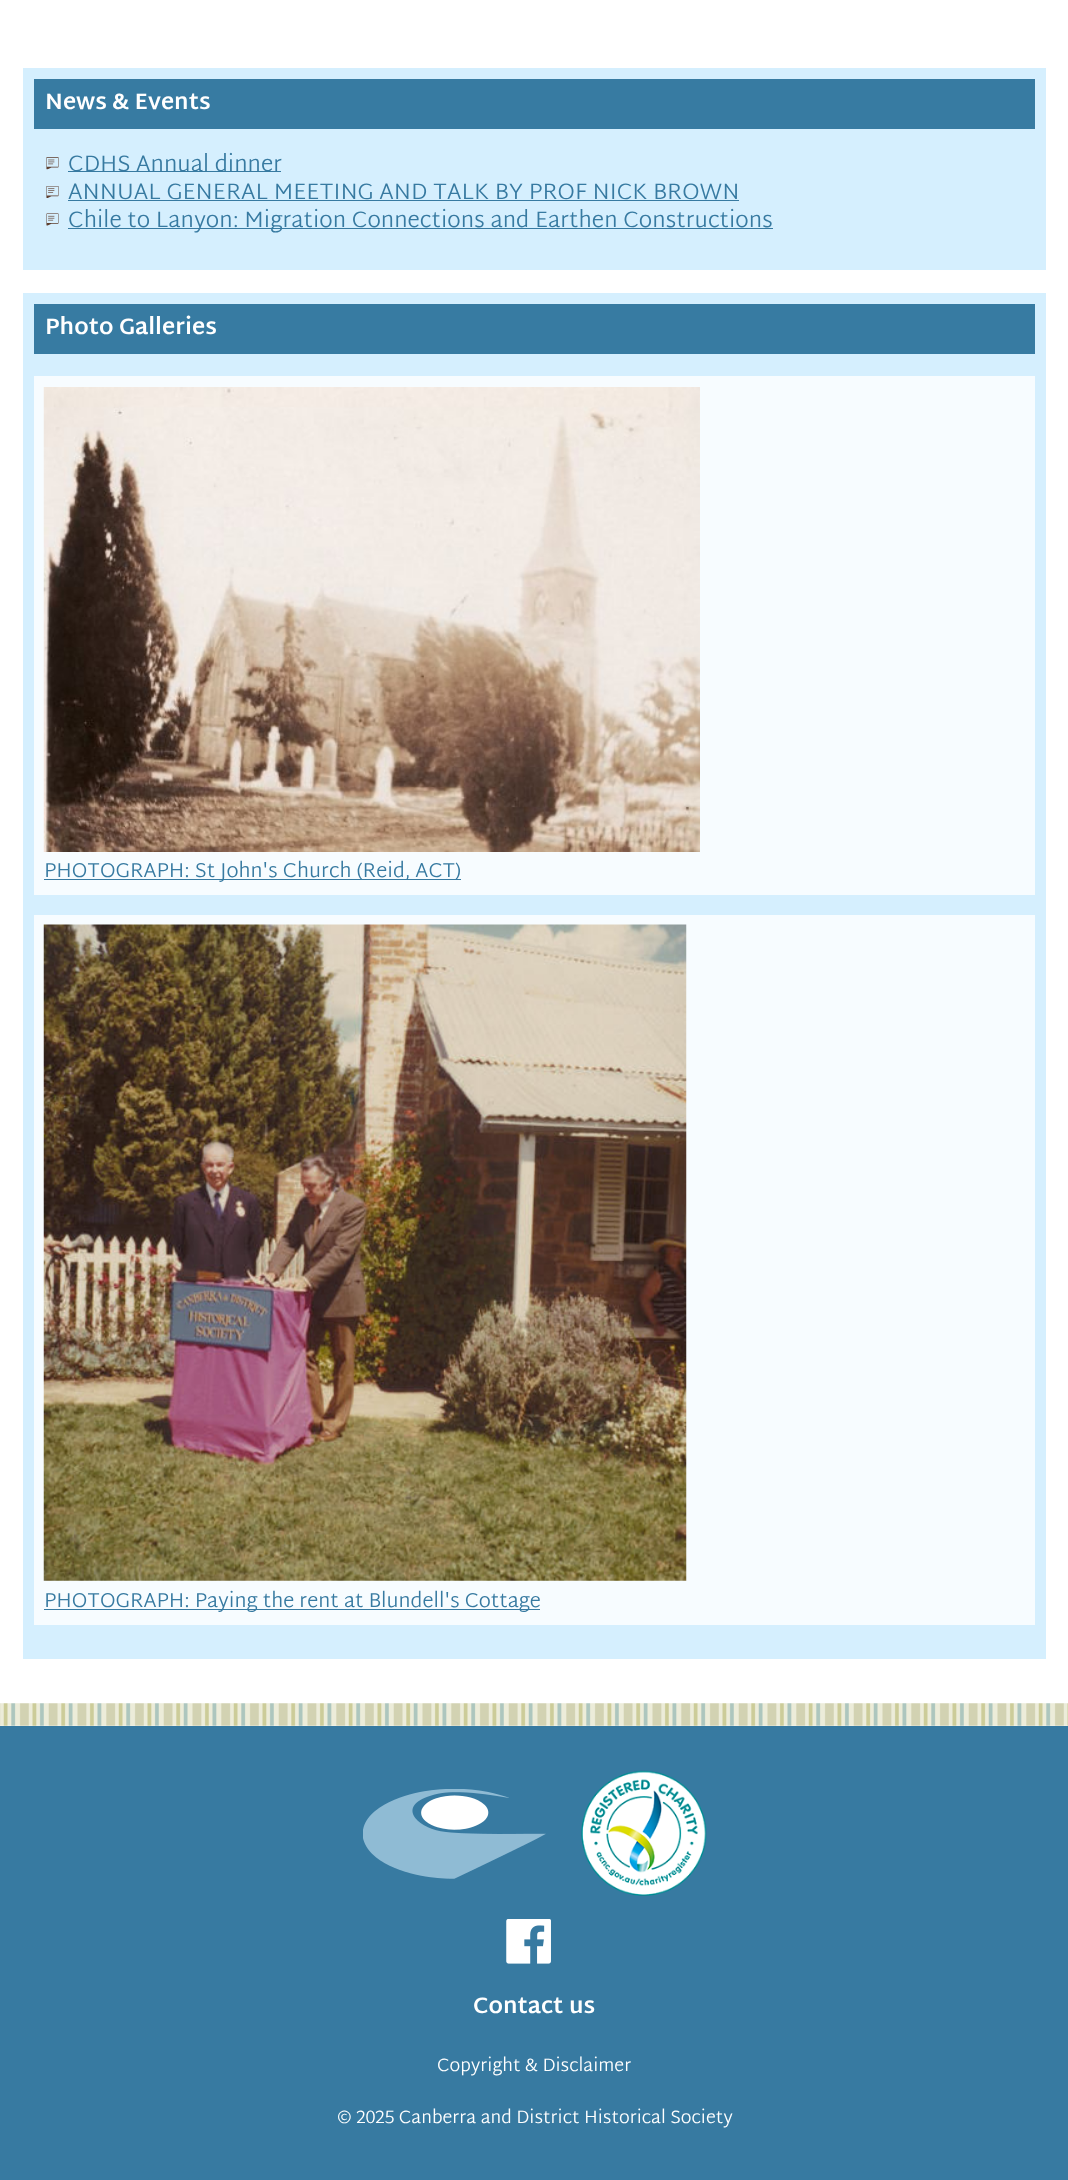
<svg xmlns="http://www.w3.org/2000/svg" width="1068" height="2180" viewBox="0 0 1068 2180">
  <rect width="100%" height="100%" fill="rgb(255,255,255)"/>
  <rect x="23" y="68" width="1023" height="202" fill="rgb(213,239,254)"/>
  <rect x="34" y="79" width="1001" height="50" fill="rgb(55,123,162)"/>
  <text x="45" y="109" font-family="Martel Sans" font-size="22.5" font-weight="bold" fill="rgb(255,255,255)">News &amp; Events</text>
  <image x="46" y="157" width="13" height="13" href="pic1.png"/>
  <rect x="68" y="171" width="213" height="1" fill="rgb(55,122,161)"/>
  <text x="68" y="171" font-family="Martel Sans" font-size="22.5" font-weight="300" fill="rgb(55,122,161)">CDHS Annual dinner</text>
  <image x="46" y="186" width="13" height="12" href="pic2.png"/>
  <text x="68" y="199" font-family="Martel Sans" font-size="22.5" font-weight="300" fill="rgb(55,122,161)">ANNUAL GENERAL MEETING AND TALK BY PROF NICK BROWN</text>
  <rect x="68" y="200" width="671" height="1" fill="rgb(55,122,161)"/>
  <image x="46" y="213" width="13" height="13" href="pic3.png"/>
  <rect x="68" y="228" width="705" height="1" fill="rgb(55,122,161)"/>
  <text x="68" y="227" font-family="Martel Sans" font-size="22.5" font-weight="300" fill="rgb(55,122,161)">Chile to Lanyon: Migration Connections and Earthen Constructions</text>
  <rect x="23" y="293" width="1023" height="1366" fill="rgb(213,239,254)"/>
  <rect x="34" y="304" width="1001" height="50" fill="rgb(55,123,162)"/>
  <text x="45" y="334" font-family="Martel Sans" font-size="22.5" font-weight="bold" fill="rgb(255,255,255)">Photo Galleries</text>
  <rect x="34" y="376" width="1001" height="519" fill="rgb(247,252,255)"/>
  <image x="43" y="387" width="657" height="465" href="pic4.png"/>
  <rect x="44" y="879" width="417" height="1" fill="rgb(55,122,161)"/>
  <text x="44" y="877" font-family="Martel Sans" font-size="20.25" font-weight="300" fill="rgb(55,122,161)">PHOTOGRAPH: St John's Church (Reid, ACT)</text>
  <rect x="34" y="915" width="1001" height="710" fill="rgb(247,252,255)"/>
  <image x="43" y="924" width="644" height="657" href="pic5.png"/>
  <rect x="44" y="1609" width="496" height="1" fill="rgb(55,122,161)"/>
  <text x="44" y="1607" font-family="Martel Sans" font-size="20.25" font-weight="300" fill="rgb(55,122,161)">PHOTOGRAPH: Paying the rent at Blundell's Cottage</text>
  <image x="0" y="1703" width="1068" height="23" href="pic6.png"/>
  <rect x="0" y="1726" width="1068" height="454" fill="rgb(55,122,161)"/>
  <image x="363" y="1789" width="183" height="90" href="pic7.png"/>
  <image x="581" y="1770" width="126" height="126" href="pic8.png"/>
  <image x="506" y="1919" width="45" height="45" href="pic9.png"/>
  <text x="473" y="2013" font-family="Martel Sans" font-size="22.5" font-weight="bold" fill="rgb(255,255,255)">Contact us</text>
  <g font-family="Martel Sans" font-size="18" font-weight="300" fill="rgb(255,255,255)">
    <text x="437" y="2071">Copyright &amp; Disclaimer</text>
    <text x="337" y="2123">© 2025 Canberra and District Historical Society</text>
  </g>
</svg>
